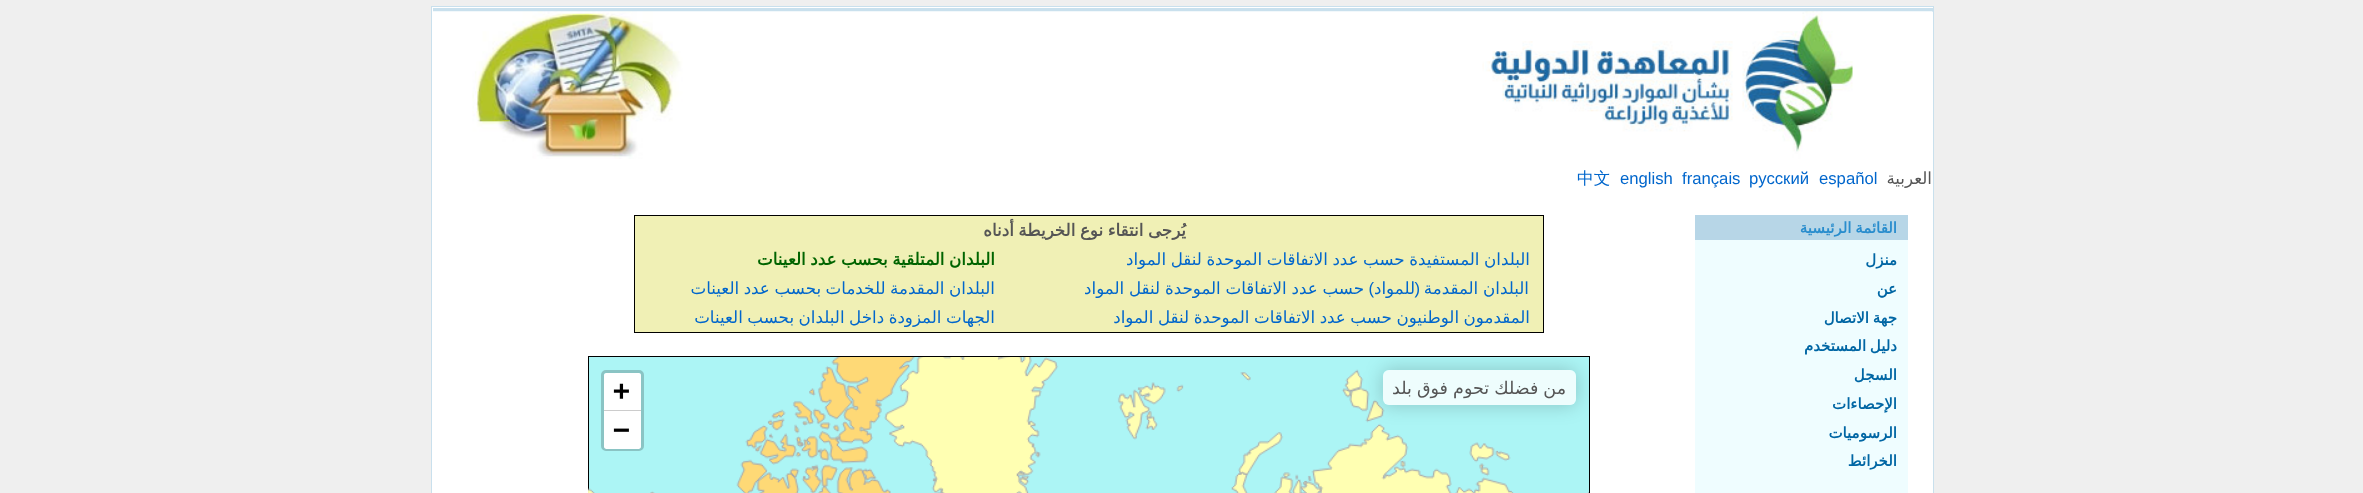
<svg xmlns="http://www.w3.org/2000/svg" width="2363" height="493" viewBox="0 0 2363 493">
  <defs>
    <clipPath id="clip1"><rect x="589" y="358" width="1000" height="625"/></clipPath>
    <clipPath id="clip2"><path d="M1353 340H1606V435H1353ZM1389 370H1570C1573.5 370 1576 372.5 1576 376V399C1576 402.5 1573.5 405 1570 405H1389C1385.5 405 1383 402.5 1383 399V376C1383 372.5 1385.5 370 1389 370Z" clip-rule="evenodd"/></clipPath>
  </defs>
  <rect width="100%" height="100%" fill="rgb(239,239,239)"/>
  <rect x="431.5" y="6.5" width="1502" height="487" fill="rgb(255,255,255)" stroke="rgb(201,224,237)"/>
  <rect x="433" y="8" width="1500" height="4" fill="rgb(201,224,237)"/>
  <image x="433" y="11" width="1500" height="148" href="pic1.png"/>
  <text x="1932" y="184" font-family="DejaVu Sans" font-size="16.7" direction="rtl" fill="rgb(85,85,85)">العربية</text>
  <g font-family="Liberation Sans" font-size="16.7" fill="rgb(0,102,204)">
    <text x="1819" y="184">español</text>
    <text x="1749" y="184">pусский</text>
    <text x="1682" y="184">français</text>
    <text x="1620" y="184">english</text>
  </g>
  <text x="1577" y="184" font-family="WenQuanYi Zen Hei" font-size="16.7" font-weight="500" fill="rgb(0,102,204)">中文</text>
  <rect x="1695" y="215" width="213" height="25" fill="rgb(183,214,231)"/>
  <text x="1897" y="233" word-spacing="-1" font-family="DejaVu Sans" font-size="15" font-weight="bold" direction="rtl" fill="rgb(41,141,205)">القائمة الرئيسية</text>
  <rect x="1695" y="240" width="213" height="253" fill="rgb(239,253,255)"/>
  <g font-family="DejaVu Sans" font-size="15" font-weight="bold" direction="rtl" fill="rgb(0,102,164)">
    <text>
      <tspan x="1897" y="265">منزل</tspan>
      <tspan x="1897" y="294">عن</tspan>
      <tspan x="1897" y="323" word-spacing="-1">جهة الاتصال</tspan>
      <tspan x="1897" y="351" word-spacing="-1">دليل المستخدم</tspan>
      <tspan x="1897" y="380">السجل</tspan>
      <tspan x="1897" y="409">الإحصاءات</tspan>
      <tspan x="1897" y="438">الرسوميات</tspan>
      <tspan x="1897" y="466">الخرائط</tspan>
    </text>
  </g>
  <rect x="634.5" y="215.5" width="909" height="117" fill="rgb(240,240,181)" stroke="rgb(0,0,0)"/>
  <text x="1186" y="236" word-spacing="-0.75" font-family="DejaVu Sans" font-size="16.7" font-weight="bold" direction="rtl" fill="rgb(85,85,85)">يُرجى انتقاء نوع الخريطة أدناه</text>
  <text x="1530" y="265" word-spacing="-0.75" font-family="DejaVu Sans" font-size="16.7" direction="rtl" fill="rgb(0,102,204)">البلدان المستفيدة حسب عدد الاتفاقات الموحدة لنقل المواد</text>
  <text x="995" y="265" word-spacing="-0.75" font-family="DejaVu Sans" font-size="16.7" font-weight="bold" direction="rtl" fill="rgb(0,100,0)">البلدان المتلقية بحسب عدد العينات</text>
  <text x="1529" y="294" word-spacing="-0.5" font-family="DejaVu Sans" font-size="16.7" direction="rtl" fill="rgb(0,102,204)">البلدان المقدمة</text>
  <text x="1420" y="294" font-family="Liberation Sans" font-size="16.7" direction="rtl" fill="rgb(0,102,204)">(</text>
  <text x="1415" y="294" font-family="DejaVu Sans" font-size="16.7" direction="rtl" fill="rgb(0,102,204)">للمواد</text>
  <text x="1374" y="294" font-family="Liberation Sans" font-size="16.7" direction="rtl" fill="rgb(0,102,204)">)</text>
  <g font-family="DejaVu Sans" font-size="16.7" direction="rtl" fill="rgb(0,102,204)">
    <text x="1364" y="294" word-spacing="-0.5">حسب عدد الاتفاقات الموحدة لنقل المواد</text>
    <text x="995" y="294" word-spacing="-0.75">البلدان المقدمة للخدمات بحسب عدد العينات</text>
    <text x="1530" y="323" word-spacing="-0.75">المقدمون الوطنيون حسب عدد الاتفاقات الموحدة لنقل المواد</text>
    <text x="995" y="323" word-spacing="-0.75">الجهات المزودة داخل البلدان بحسب العينات</text>
  </g>
  <rect x="588.5" y="356.5" width="1001" height="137" fill="rgb(172,245,245)" stroke="rgb(0,0,0)"/>
  <image x="588" y="357" width="1001" height="136" href="pic2.png"/>
  <g clip-path="url(#clip1)">
    <g clip-path="url(#clip2)">
      <rect x="1383" y="370" width="193" height="35" rx="6" fill="rgba(0,0,0,0.2)" filter="blur(9.5px)"/>
    </g>
  </g>
  <rect x="1383" y="370" width="193" height="35" rx="6" fill="rgba(255,255,255,0.8)"/>
  <text x="1566" y="394" word-spacing="-0.5" font-family="DejaVu Sans" font-size="17.5" direction="rtl" fill="rgb(85,85,85)">من فضلك تحوم فوق بلد</text>
  <rect x="602.5" y="371.5" width="40" height="78" rx="3.5" fill="none" stroke="rgb(138,196,196)" stroke-width="3"/>
  <path d="M606.5 373H638.5C640 373 641 374 641 375.5V411H604V375.5C604 374 605 373 606.5 373Z" fill="rgb(255,255,255)"/>
  <rect x="604" y="410" width="37" height="1" fill="rgb(204,204,204)"/>
  <text x="613" y="400" font-family="DejaVu Sans Mono" font-size="28" font-weight="bold" fill="rgb(0,0,0)">+</text>
  <path d="M604 411H641V446.5C641 448 640 449 638.5 449H606.5C605 449 604 448 604 446.5Z" fill="rgb(255,255,255)"/>
  <text x="613" y="439" font-family="DejaVu Sans Mono" font-size="28" font-weight="bold" fill="rgb(0,0,0)">−</text>
</svg>
